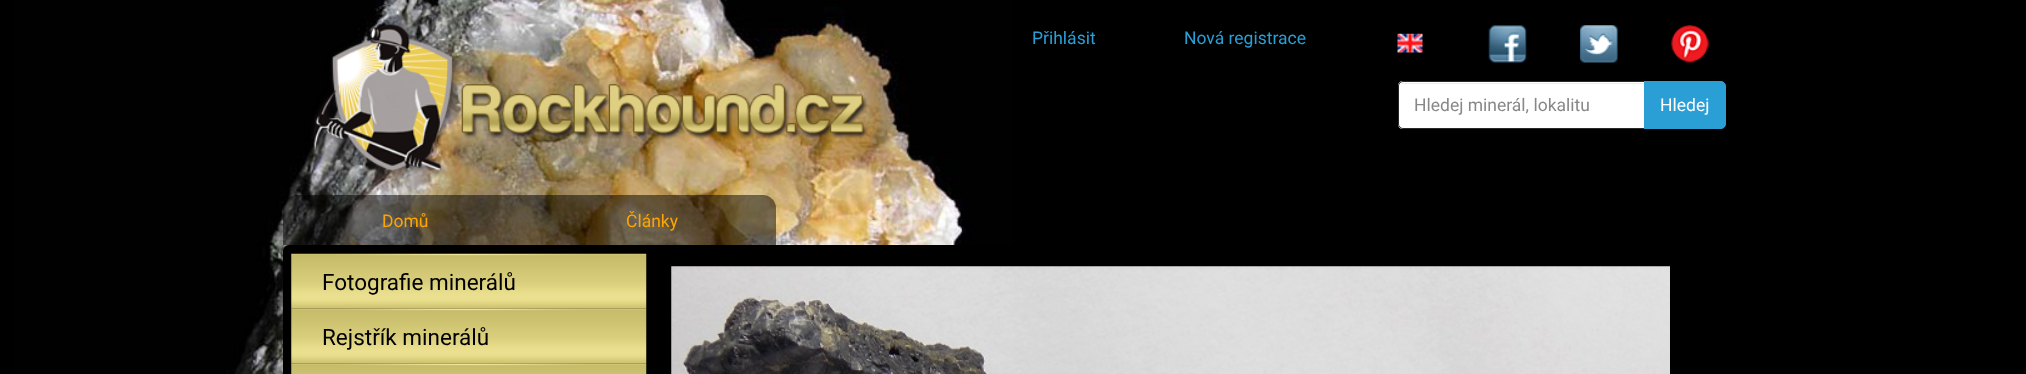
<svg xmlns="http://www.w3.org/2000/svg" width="2026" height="374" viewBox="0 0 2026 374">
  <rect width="100%" height="100%" fill="rgb(255,255,255)"/>
  <image x="0" y="0" width="2026" height="374" href="pic1.png"/>
  <image x="310" y="20" width="558" height="158" href="pic2.png"/>
  <g font-family="Roboto" font-size="17.5" fill="rgb(42,159,214)">
    <text x="1032" y="44">Přihlásit</text>
    <text x="1184" y="44">Nová registrace</text>
  </g>
  <image x="1397" y="33" width="26" height="20" href="pic3.png"/>
  <image x="1488" y="25" width="39" height="38" href="pic4.png"/>
  <image x="1580" y="25" width="38" height="38" href="pic5.png"/>
  <image x="1671" y="25" width="38" height="38" href="pic6.png"/>
  <path d="M1403 81H1645V129H1403C1400 129 1398 127 1398 124V86C1398 83 1400 81 1403 81Z" fill="rgb(255,255,255)"/>
  <path d="M1402 84H1644V83H1403C1401 83 1399 85 1399 87V88C1399 85 1400 84 1402 84Z" fill="rgb(236,236,236)"/>
  <path d="M1403 81.5H1644.5V128.5H1403C1400.5 128.5 1398.5 126.5 1398.5 124V86C1398.5 83.5 1400.5 81.5 1403 81.5Z" fill="none" stroke="rgb(40,40,40)"/>
  <text x="1414" y="111" font-family="Roboto" font-size="17.5" fill="rgb(136,136,136)">Hledej minerál, lokalitu</text>
  <path d="M1644.5 81.5H1721C1723.5 81.5 1725.5 83.5 1725.5 86V124C1725.5 126.5 1723.5 128.5 1721 128.5H1644.5Z" fill="rgb(42,159,214)" stroke="rgb(42,159,214)"/>
  <text x="1660" y="111" font-family="Roboto" font-size="17.5" fill="rgb(255,255,255)">Hledej</text>
  <path d="M296 195H529V245H283V208C283 201 289 195 296 195Z" fill="rgba(0,0,0,0.5)"/>
  <text x="382" y="227" font-family="Roboto" font-size="17.5" fill="rgb(255,165,0)">Domů</text>
  <path d="M529 195H763C770 195 776 201 776 208V245H529Z" fill="rgba(0,0,0,0.5)"/>
  <text x="626" y="227" font-family="Roboto" font-size="17.5" fill="rgb(255,165,0)">Články</text>
  <rect x="287.5" y="249.5" width="1453" height="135" rx="1.5" fill="rgb(0,0,0)" stroke="rgb(0,0,0)" stroke-width="9"/>
  <image x="291" y="253" width="356" height="56" href="pic7.png"/>
  <text x="322" y="290" font-family="Roboto" font-size="22.5" fill="rgb(0,0,0)">Fotografie minerálů</text>
  <image x="291" y="308" width="356" height="56" href="pic8.png"/>
  <text x="322" y="345" font-family="Roboto" font-size="22.5" fill="rgb(0,0,0)">Rejstřík minerálů</text>
  <image x="291" y="363" width="356" height="11" href="pic9.png"/>
  <image x="671" y="266" width="999" height="108" href="pic10.png"/>
</svg>
